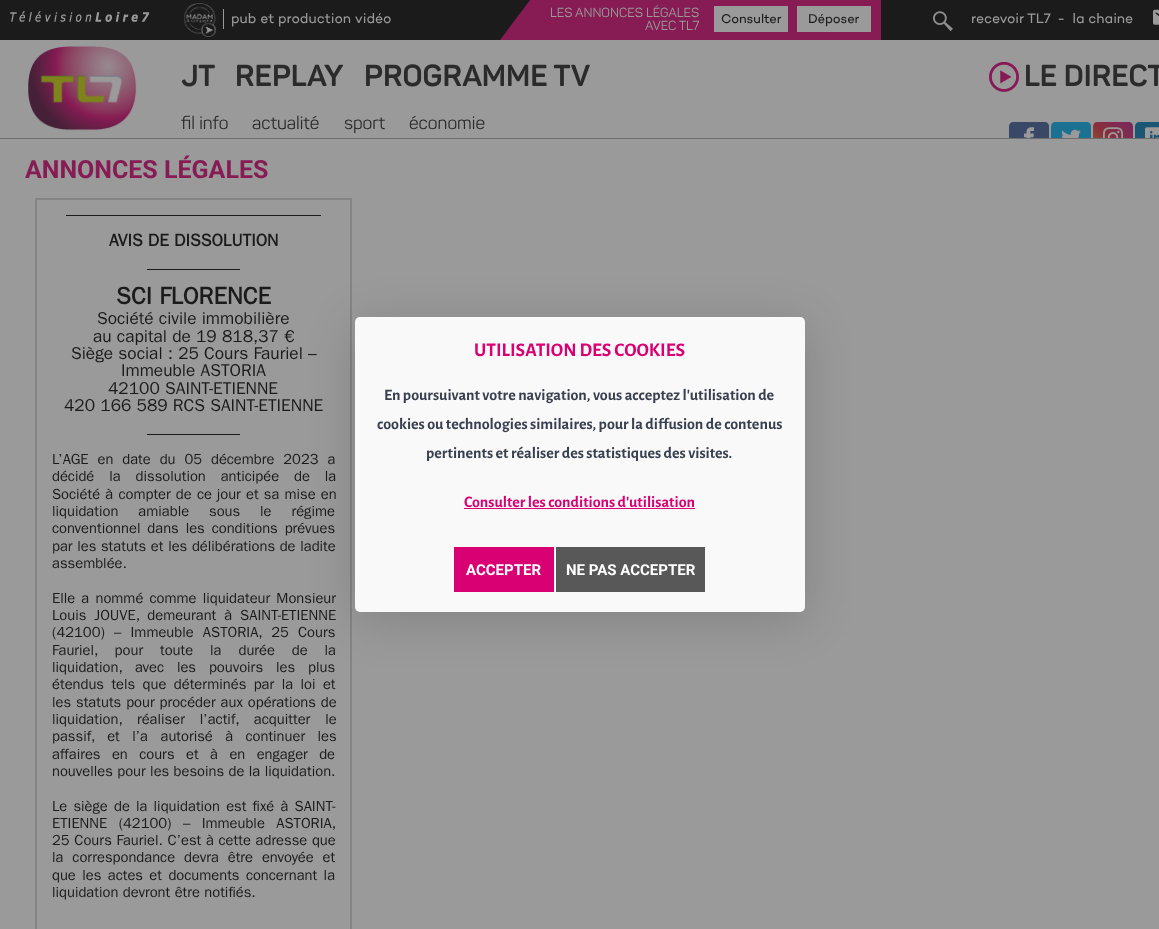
<svg xmlns="http://www.w3.org/2000/svg" width="1159" height="929" viewBox="0 0 1159 929">
  <defs>
    <linearGradient id="g1" gradientUnits="userSpaceOnUse" x1="1093" y1="162" x2="1133" y2="122"><stop offset="0" stop-color="rgb(147,101,52)"/><stop offset="0.25" stop-color="rgb(142,79,57)"/><stop offset="0.5" stop-color="rgb(137,46,60)"/><stop offset="0.75" stop-color="rgb(129,44,78)"/><stop offset="1" stop-color="rgb(121,39,95)"/></linearGradient>
  </defs>
  <rect width="100%" height="100%" fill="rgb(154,154,154)"/>
  <rect x="0" y="0" width="1159" height="40" fill="rgb(27,27,27)"/>
  <image x="10" y="11" width="140" height="11" href="pic1.png"/>
  <image x="184" y="3" width="33" height="34" href="pic2.png"/>
  <rect x="223" y="9" width="1" height="20" fill="rgb(154,154,154)"/>
  <text x="231" y="23" font-family="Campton" font-size="14" fill="rgb(154,154,154)">pub et production vidéo</text>
  <rect x="530" y="0" width="351" height="40" fill="rgb(135,27,84)"/>
  <path d="M530 40H500L530 0Z" fill="rgb(135,27,84)"/>
  <g font-family="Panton" font-size="13" fill="rgb(154,154,154)">
    <text x="550" y="17">LES ANNONCES LÉGALES</text>
    <text x="645" y="30">AVEC TL7</text>
  </g>
  <rect x="714" y="6" width="74" height="26" fill="rgb(154,154,154)"/>
  <text x="721" y="23" font-family="Campton" font-size="13" fill="rgb(27,27,27)">Consulter</text>
  <rect x="797" y="6" width="74" height="26" fill="rgb(154,154,154)"/>
  <text x="808" y="23" font-family="Campton" font-size="13" fill="rgb(27,27,27)">Déposer</text>
  <image x="933" y="11" width="20" height="21" href="pic3.png"/>
  <text x="971" y="23" font-family="Campton" font-size="14" fill="rgb(154,154,154)" xml:space="preserve">recevoir TL7  -  la chaine</text>
  <image x="1153" y="9" width="6" height="16" href="pic4.png"/>
  <image x="28" y="46" width="109" height="85" href="pic5.png"/>
  <g font-family="Panton" font-size="30" font-weight="bold" fill="rgb(43,43,43)">
    <text x="181" y="86">JT</text>
    <text x="235" y="86">REPLAY</text>
    <text x="364" y="86">PROGRAMME TV</text>
  </g>
  <image x="989" y="62" width="30" height="30" href="pic6.png"/>
  <text x="1024" y="86" font-family="Panton" font-size="30" font-weight="bold" fill="rgb(43,43,43)">LE DIRECT</text>
  <rect x="0" y="138" width="1159" height="1" fill="rgb(110,110,110)"/>
  <g font-family="Panton" font-size="18" fill="rgb(43,43,43)">
    <text x="181" y="129">fil info</text>
    <text x="252" y="129">actualité</text>
    <text x="344" y="129">sport</text>
    <text x="409" y="129">économie</text>
  </g>
  <path d="M1013 122H1045C1047 122 1049 124 1049 126V138H1009V126C1009 124 1011 122 1013 122Z" fill="rgb(57,72,103)"/>
  <image x="1024" y="127" width="10" height="11" href="pic7.png"/>
  <path d="M1055 122H1087C1089 122 1091 124 1091 126V138H1051V126C1051 124 1053 122 1055 122Z" fill="rgb(27,113,146)"/>
  <image x="1061" y="129" width="20" height="9" href="pic8.png"/>
  <path d="M1097 122H1129C1131 122 1133 124 1133 126V138H1093V126C1093 124 1095 122 1097 122Z" fill="url(#g1)"/>
  <image x="1103" y="127" width="20" height="11" href="pic9.png"/>
  <path d="M1139 122H1159C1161 122 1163 124 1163 126V138H1135V126C1135 124 1137 122 1139 122Z" fill="rgb(27,86,117)"/>
  <image x="1145" y="127" width="14" height="11" href="pic10.png"/>
  <text x="25" y="178" font-family="Roboto" font-size="25" font-weight="bold" fill="rgb(135,27,84)">ANNONCES LÉGALES</text>
  <rect x="36" y="199" width="315" height="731" fill="none" stroke="rgb(132,132,132)" stroke-width="2"/>
  <rect x="66" y="215" width="255" height="1" fill="rgb(27,27,27)"/>
  <text x="109" y="246" font-family="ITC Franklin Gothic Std" font-size="17.3" font-weight="bold" fill="rgb(27,27,27)">AVIS DE DISSOLUTION</text>
  <rect x="147" y="269" width="93" height="1" fill="rgb(27,27,27)"/>
  <text x="116" y="304" font-family="ITC Franklin Gothic Std" font-size="24" font-weight="bold" fill="rgb(27,27,27)">SCI FLORENCE</text>
  <g font-family="ITC Franklin Gothic Std" font-size="17.3" fill="rgb(27,27,27)">
    <text x="97" y="324">Société civile immobilière</text>
    <text x="93" y="342">au capital de 19 818,37 €</text>
    <text x="71" y="359">Siège social : 25 Cours Fauriel –</text>
    <text x="121" y="376">Immeuble ASTORIA</text>
    <text x="108" y="394">42100 SAINT-ETIENNE</text>
    <text x="64" y="411">420 166 589 RCS SAINT-ETIENNE</text>
  </g>
  <rect x="147" y="434" width="93" height="1" fill="rgb(27,27,27)"/>
  <g font-family="ITC Franklin Gothic Std" font-size="14.7" fill="rgb(27,27,27)">
    <text>
      <tspan x="52" y="464" word-spacing="4.5">L’AGE en date du 05 décembre 2023 a</tspan>
      <tspan x="52" y="481" word-spacing="10.5">décidé la dissolution anticipée de la</tspan>
      <tspan x="52" y="499" word-spacing="0.75">Société à compter de ce jour et sa mise en</tspan>
      <tspan x="52" y="516" word-spacing="15.5">liquidation amiable sous le régime</tspan>
      <tspan x="52" y="533" word-spacing="2.5">conventionnel dans les conditions prévues</tspan>
      <tspan x="52" y="551" word-spacing="0.25">par les statuts et les délibérations de ladite</tspan>
      <tspan x="52" y="568">assemblée.</tspan>
    </text>
    <text>
      <tspan x="52" y="603" word-spacing="1.75">Elle a nommé comme liquidateur Monsieur</tspan>
      <tspan x="52" y="620" word-spacing="3.5">Louis JOUVE, demeurant à SAINT-ETIENNE</tspan>
      <tspan x="52" y="637" word-spacing="4.75">(42100) – Immeuble ASTORIA, 25 Cours</tspan>
      <tspan x="52" y="655" word-spacing="12.5">Fauriel, pour toute la durée de la</tspan>
      <tspan x="52" y="672" word-spacing="8.5">liquidation, avec les pouvoirs les plus</tspan>
      <tspan x="52" y="689" word-spacing="3">étendus tels que déterminés par la loi et</tspan>
      <tspan x="52" y="707" word-spacing="0.5">les statuts pour procéder aux opérations de</tspan>
      <tspan x="52" y="724" word-spacing="10.5">liquidation, réaliser l’actif, acquitter le</tspan>
      <tspan x="52" y="741" word-spacing="8">passif, et l’a autorisé à continuer les</tspan>
      <tspan x="52" y="759" word-spacing="7">affaires en cours et à en engager de</tspan>
      <tspan x="52" y="776">nouvelles pour les besoins de la liquidation.</tspan>
    </text>
    <text>
      <tspan x="52" y="811" word-spacing="1.75">Le siège de la liquidation est fixé à SAINT-</tspan>
      <tspan x="52" y="828" word-spacing="7">ETIENNE (42100) – Immeuble ASTORIA,</tspan>
      <tspan x="52" y="845" word-spacing="0.25">25 Cours Fauriel. C’est à cette adresse que</tspan>
      <tspan x="52" y="862" word-spacing="4.5">la correspondance devra être envoyée et</tspan>
      <tspan x="52" y="880" word-spacing="2">que les actes et documents concernant la</tspan>
      <tspan x="52" y="897">liquidation devront être notifiés.</tspan>
    </text>
  </g>
  <rect x="355" y="325" width="450" height="295" rx="5" fill="rgba(0,0,0,0.15)" filter="blur(24px)"/>
  <rect x="355" y="317" width="450" height="295" rx="5" fill="rgb(249,249,249)"/>
  <text x="474" y="356" font-family="Alegreya Sans" font-size="19.25" font-weight="bold" fill="rgb(217,0,115)">UTILISATION DES COOKIES</text>
  <g font-family="Alegreya Sans" font-size="16" font-weight="bold" fill="rgb(56,63,78)">
    <text x="384" y="400">En poursuivant votre navigation, vous acceptez l'utilisation de</text>
    <text x="377" y="429">cookies ou technologies similaires, pour la diffusion de contenus</text>
    <text x="426" y="458">pertinents et réaliser des statistiques des visites.</text>
  </g>
  <text x="464" y="507" font-family="Alegreya Sans" font-size="16" font-weight="bold" fill="rgb(217,0,115)">Consulter les conditions d'utilisation</text>
  <rect x="464" y="508" width="231" height="1" fill="rgb(217,0,115)"/>
  <rect x="454" y="547" width="100" height="45" fill="rgb(217,0,115)"/>
  <text x="466" y="575" font-family="Roboto" font-size="15" font-weight="bold" fill="rgb(255,255,255)">ACCEPTER</text>
  <rect x="556" y="547" width="149" height="45" fill="rgb(88,88,88)"/>
  <text x="566" y="575" font-family="Roboto" font-size="15" font-weight="bold" fill="rgb(255,255,255)">NE PAS ACCEPTER</text>
</svg>
